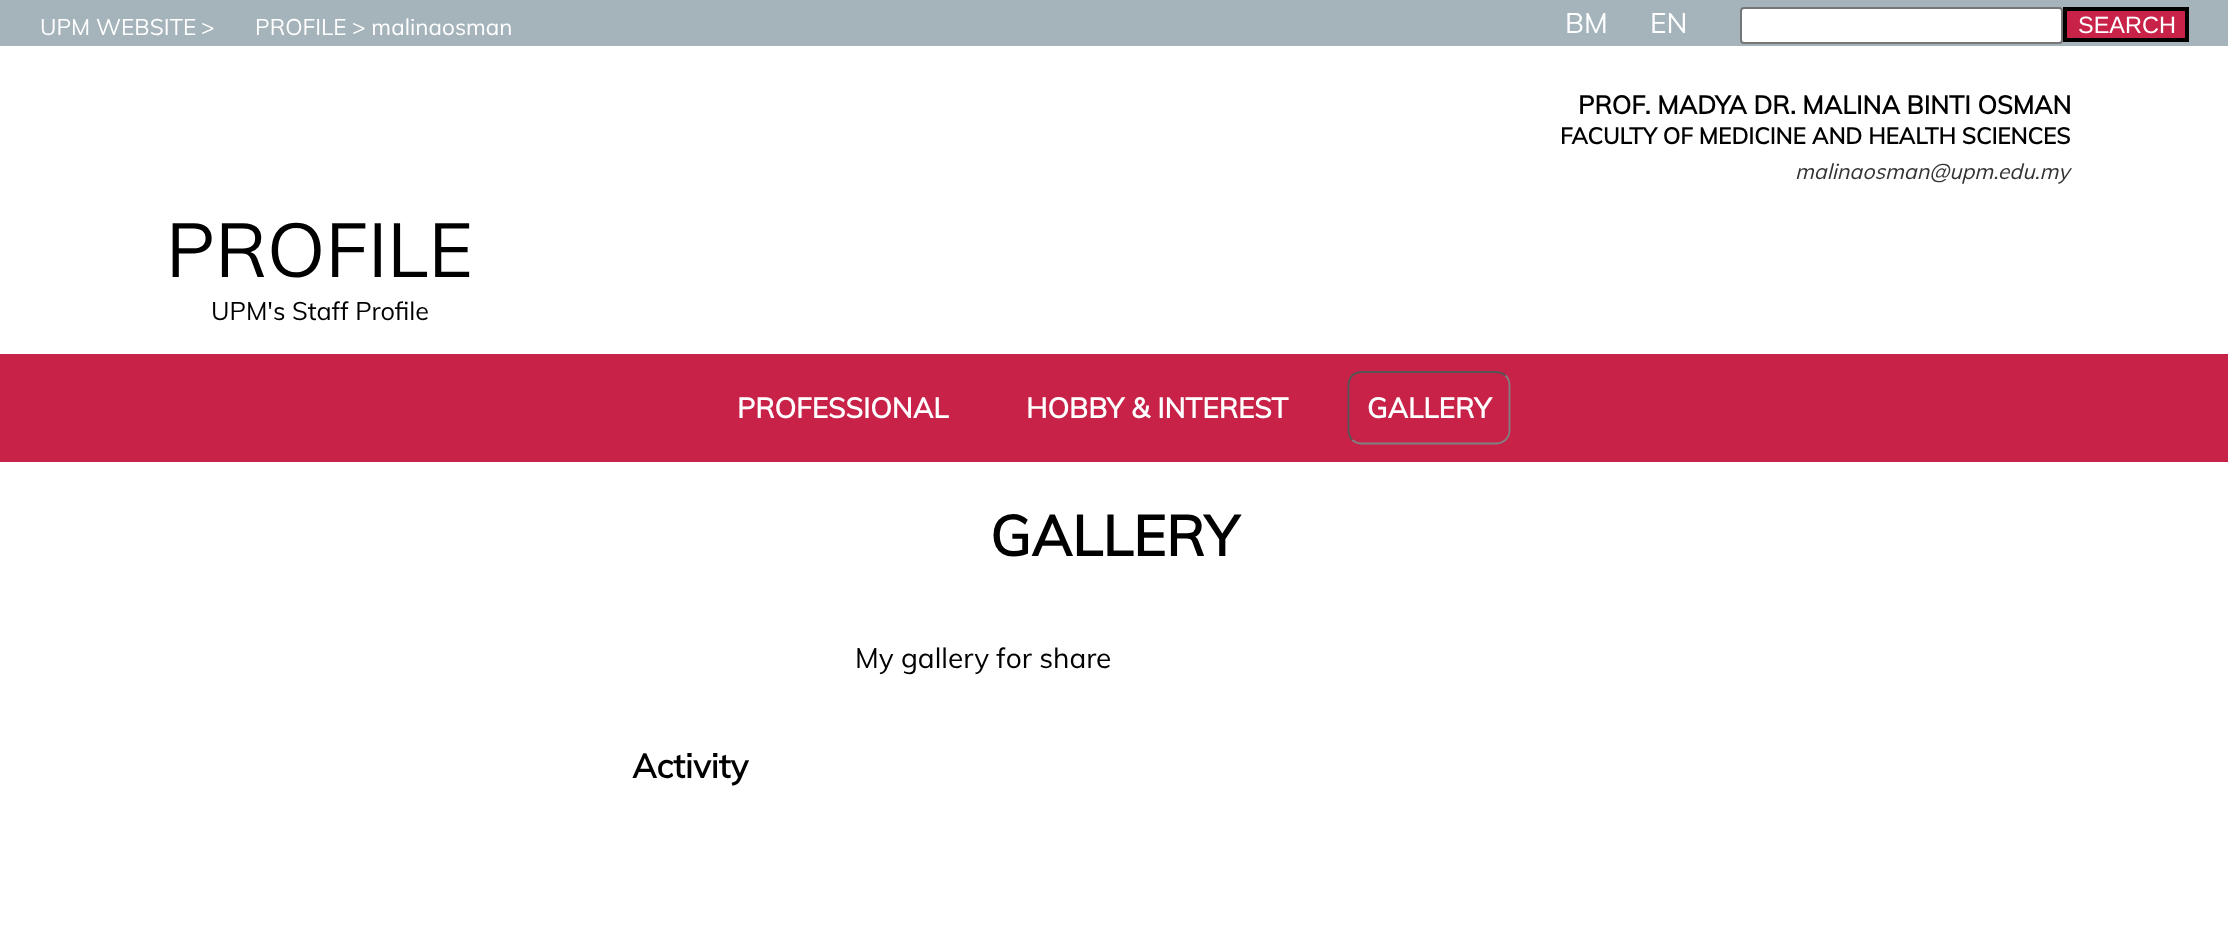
<svg xmlns="http://www.w3.org/2000/svg" width="2228" height="935" viewBox="0 0 2228 935">
  <rect width="100%" height="100%" fill="rgb(255,255,255)"/>
  <rect x="0" y="0" width="2228" height="46" fill="rgb(165,179,187)"/>
  <g font-family="Muli" font-size="22.5" fill="rgb(255,255,255)">
    <text x="40" y="35">UPM WEBSITE</text>
    <text x="201" y="35">&gt;</text>
    <text x="255" y="35">PROFILE</text>
    <text x="352" y="35">&gt; malinaosman</text>
  </g>
  <g font-family="Muli" font-size="28" fill="rgb(255,255,255)">
    <text x="1565" y="33">BM</text>
    <text x="1650" y="33">EN</text>
  </g>
  <rect x="1741" y="8" width="321" height="35" rx="3" fill="rgb(255,255,255)" stroke="rgb(118,118,118)" stroke-width="2"/>
  <rect x="2065" y="9" width="122" height="31" fill="rgb(200,34,73)" stroke="rgb(0,0,0)" stroke-width="4"/>
  <text x="2078" y="33" font-family="Liberation Sans" font-size="23.5" fill="rgb(255,255,255)">SEARCH</text>
  <text x="1578" y="114" font-family="Muli" font-size="25.25" font-weight="bold" fill="rgb(0,0,0)">PROF. MADYA DR. MALINA BINTI OSMAN</text>
  <text x="1560" y="144" font-family="Muli" font-size="22.7" font-weight="bold" fill="rgb(0,0,0)">FACULTY OF MEDICINE AND HEALTH SCIENCES</text>
  <text x="1795" y="179" font-family="Muli" font-size="21.4" font-style="italic" fill="rgb(51,51,51)">malinaosman@upm.edu.my</text>
  <text x="166" y="277" font-family="Muli" font-size="75.5" fill="rgb(0,0,0)">PROFILE</text>
  <text x="211" y="320" font-family="Muli" font-size="25.25" fill="rgb(0,0,0)">UPM's Staff Profile</text>
  <rect x="0" y="354" width="2228" height="108" fill="rgb(200,34,73)"/>
  <g font-family="Muli" font-size="28" font-weight="bold" fill="rgb(255,255,255)">
    <text x="737" y="418">PROFESSIONAL</text>
    <text x="1026" y="418">HOBBY &amp; INTEREST</text>
  </g>
  <path d="M1505.5 375.5C1508 378 1509.5 381.5 1509.5 385V430.5C1509.5 434 1508 437.5 1505.5 440C1503 442 1499.5 443.5 1496 443.5H1361.5C1358 443.5 1354.5 442 1352 440" fill="none" stroke="rgb(128,128,128)" stroke-width="1.8"/>
  <path d="M1352 440C1350 437.5 1348.5 434 1348.5 430.5V385C1348.5 381.5 1350 378 1352 375.5C1354.5 373.5 1358 372 1361.5 372H1496C1499.5 372 1503 373.5 1505.5 375.5" fill="none" stroke="rgb(85,85,85)" stroke-width="1.8"/>
  <text x="1367" y="418" font-family="Muli" font-size="28" font-weight="bold" fill="rgb(255,255,255)">GALLERY</text>
  <text x="990" y="556" font-family="Muli" font-size="56" font-weight="bold" fill="rgb(0,0,0)">GALLERY</text>
  <text x="855" y="668" font-family="Muli" font-size="28" fill="rgb(0,0,0)">My gallery for share</text>
  <text x="632" y="778" font-family="Muli" font-size="33.5" font-weight="bold" fill="rgb(0,0,0)">Activity</text>
</svg>
